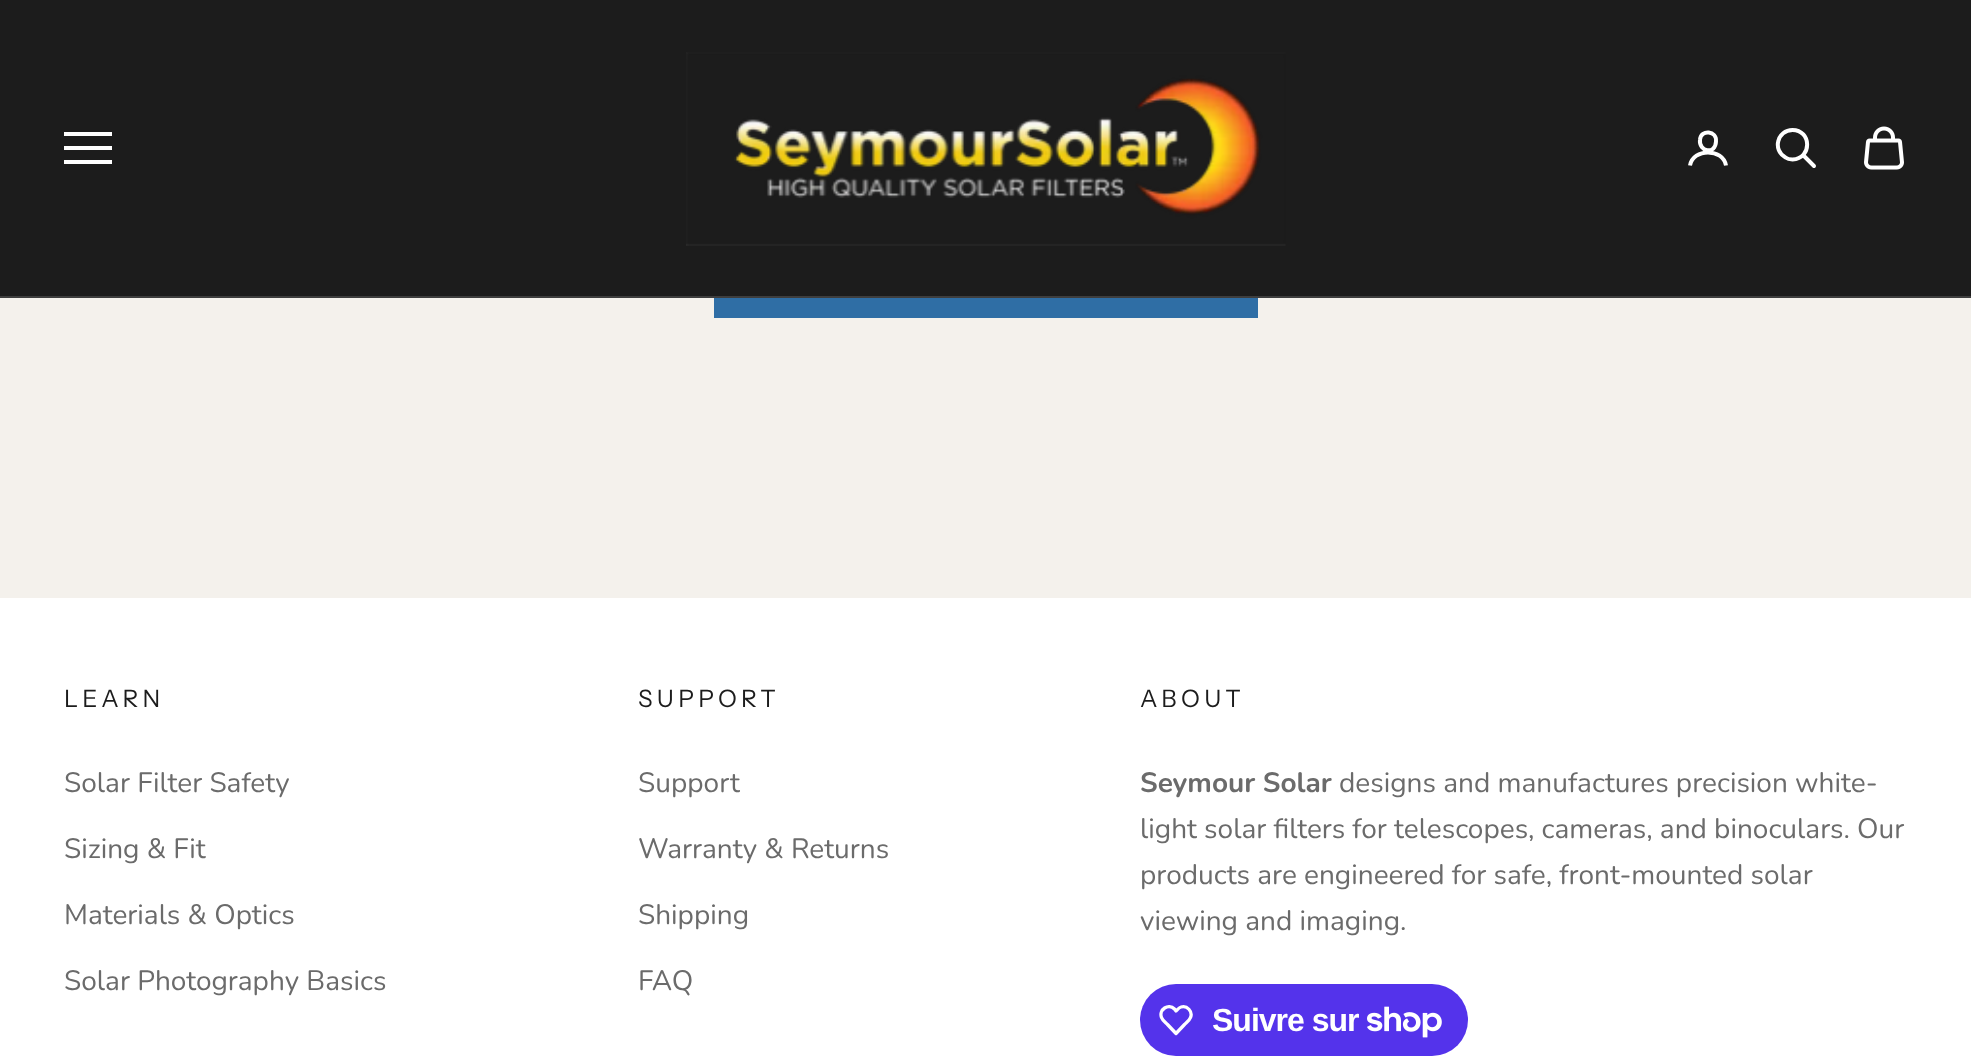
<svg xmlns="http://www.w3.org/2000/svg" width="1971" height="1062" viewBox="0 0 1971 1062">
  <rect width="100%" height="100%" fill="rgb(244,241,236)"/>
  <rect x="716" y="298" width="540" height="18" fill="rgb(47,110,165)"/>
  <rect x="715" y="231" width="542" height="86" fill="none" stroke="rgb(47,110,165)" stroke-width="2"/>
  <rect x="0" y="0" width="1971" height="296" fill="rgb(28,28,28)"/>
  <rect x="0" y="296" width="1971" height="2" fill="rgb(62,62,62)"/>
  <path d="M66 162H110M66 148H110M66 134H110" fill="none" stroke="rgb(255,255,255)" stroke-width="4" stroke-linecap="square"/>
  <image x="686" y="52" width="600" height="194" href="pic1.png"/>
  <path d="M1716 141.5C1715.5 155 1698.5 152 1700 139.5C1701 129 1717 130.5 1716 141.5Z" fill="none" stroke="rgb(255,255,255)" stroke-width="4" stroke-linecap="round" stroke-linejoin="round"/>
  <path d="M1690 165.5C1693 148 1723 148 1726 165.5" fill="none" stroke="rgb(255,255,255)" stroke-width="4"/>
  <path d="M1792.5 130C1777.5 130 1772 150 1785.5 157.5C1787.5 159 1790 159.5 1792.5 159.5C1812.5 158.5 1811.5 130 1792.5 130Z" fill="none" stroke="rgb(255,255,255)" stroke-width="4"/>
  <path d="M1803.5 155.5L1814 166" fill="none" stroke="rgb(255,255,255)" stroke-width="4" stroke-linecap="round"/>
  <image x="1864" y="126" width="40" height="44" href="pic2.png"/>
  <rect x="0" y="598" width="1971" height="464" fill="rgb(255,255,255)"/>
  <text x="64" y="707" font-family="Instrument Sans" font-size="24" letter-spacing="4.25" fill="rgb(28,28,28)">LEARN</text>
  <g font-family="Nunito" font-size="28" fill="rgb(107,107,107)">
    <text x="64" y="792">Solar Filter Safety</text>
    <text x="64" y="858">Sizing &amp; Fit</text>
    <text x="64" y="924">Materials &amp; Optics</text>
    <text x="64" y="990">Solar Photography Basics</text>
  </g>
  <text x="638" y="707" font-family="Instrument Sans" font-size="24" letter-spacing="4.25" fill="rgb(28,28,28)">SUPPORT</text>
  <g font-family="Nunito" font-size="28" fill="rgb(107,107,107)">
    <text x="638" y="792">Support</text>
    <text x="638" y="858">Warranty &amp; Returns</text>
    <text x="638" y="924">Shipping</text>
    <text x="638" y="990">FAQ</text>
  </g>
  <text x="1140" y="707" font-family="Instrument Sans" font-size="24" letter-spacing="4.25" fill="rgb(28,28,28)">ABOUT</text>
  <text x="1140" y="792" font-family="Nunito" font-size="28" font-weight="bold" fill="rgb(107,107,107)">Seymour Solar</text>
  <g font-family="Nunito" font-size="28" fill="rgb(107,107,107)">
    <text x="1339" y="792">designs and manufactures precision white-</text>
    <text>
      <tspan x="1140" y="838">light solar filters for telescopes, cameras, and binoculars. Our</tspan>
      <tspan x="1140" y="884">products are engineered for safe, front-mounted solar</tspan>
      <tspan x="1140" y="930">viewing and imaging.</tspan>
    </text>
  </g>
  <rect x="1140" y="984" width="328" height="72" rx="36" fill="rgb(84,51,235)"/>
  <path d="M1174.5 1009L1176 1011C1177.5 1009.5 1179 1007.5 1181 1007C1187 1005 1193 1011.5 1190.5 1017.5C1189.5 1020.5 1186.5 1022.5 1184.5 1024.5L1176 1033.5L1167.5 1024.5C1165.5 1022.5 1162.5 1020.5 1161.5 1017.5C1158.5 1009.5 1168.5 1003 1174.5 1009Z" fill="none" stroke="rgb(255,255,255)" stroke-width="3.3" stroke-linejoin="round"/>
  <text x="1212" y="1031" font-family="Liberation Sans" font-size="32" font-weight="bold" letter-spacing="-1" fill="rgb(255,255,255)">Suivre sur</text>
  <image x="1367" y="1006" width="75" height="32" href="pic3.png"/>
</svg>
